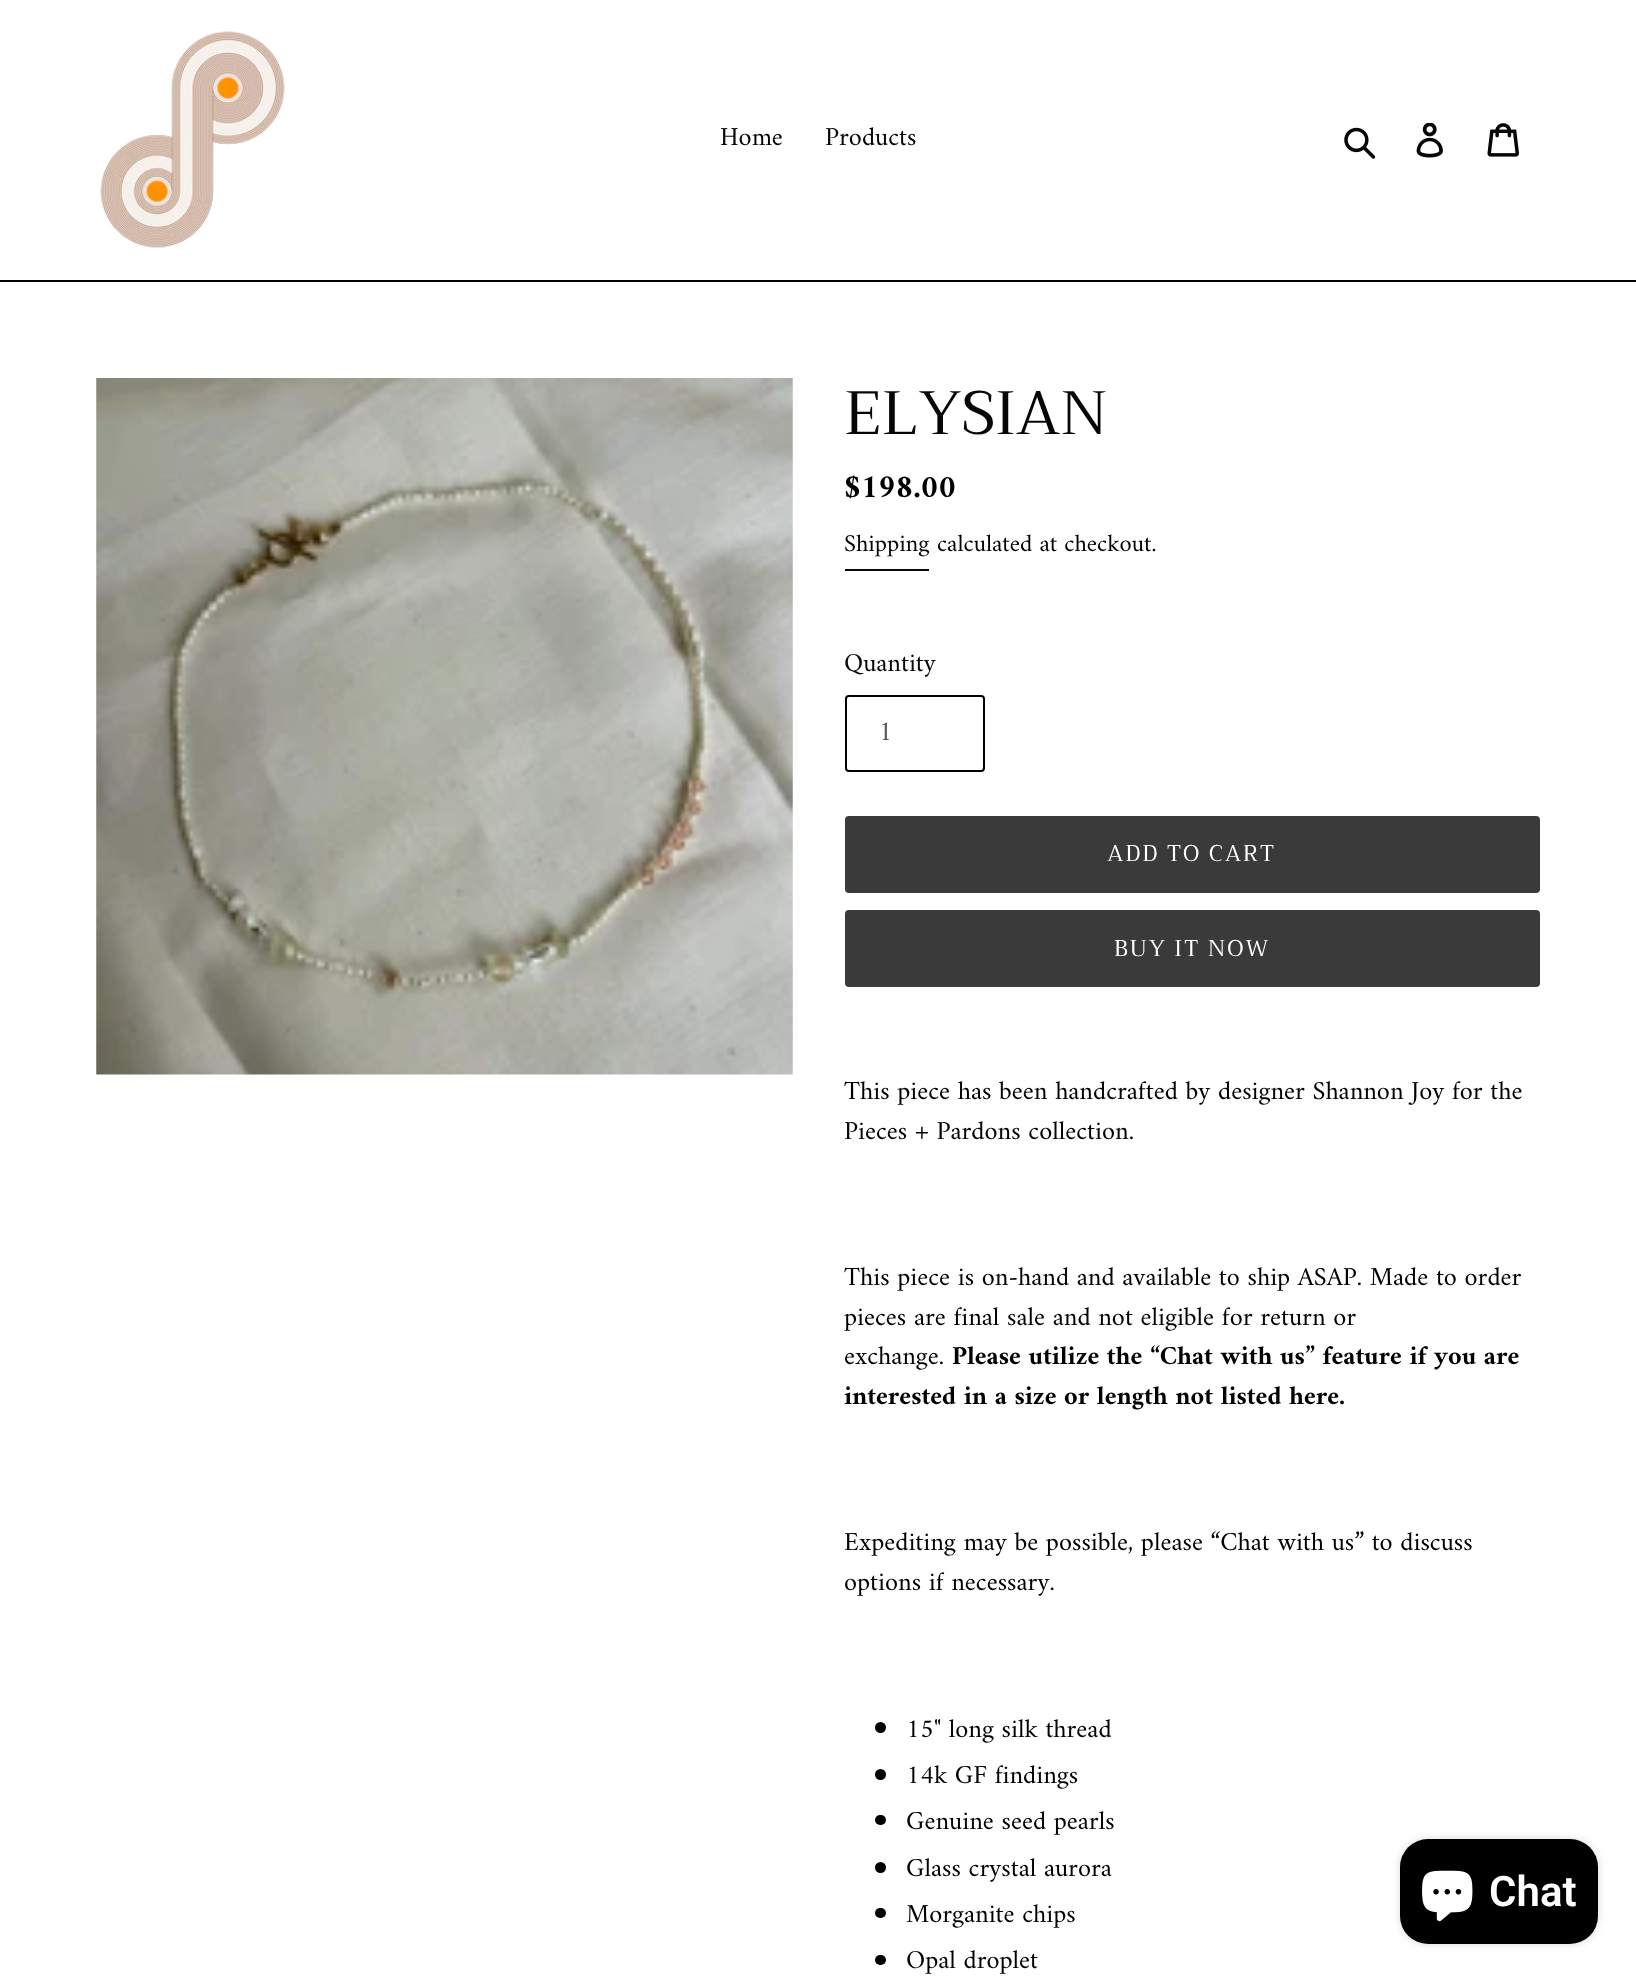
<svg xmlns="http://www.w3.org/2000/svg" width="1636" height="1981" viewBox="0 0 1636 1981">
  <style>*{font-kerning:none!important;font-variant-ligatures:none!important}</style>
  <rect width="100%" height="100%" fill="rgb(255,255,255)"/>
  <rect x="0" y="280" width="1636" height="2" fill="rgb(0,0,0)"/>
  <image x="100" y="31" width="185" height="217" href="pic1.png"/>
  <g font-family="Amiri" font-size="26.25" fill="rgb(6,6,6)">
    <text x="720" y="145">Home</text>
    <text x="825" y="145">Products</text>
  </g>
  <image x="1344" y="127" width="32" height="32" href="pic2.png"/>
  <image x="1416" y="123" width="27" height="35" href="pic3.png"/>
  <image x="1487" y="123" width="32" height="34" href="pic4.png"/>
  <image x="96" y="378" width="697" height="697" href="pic5.png"/>
  <text x="844" y="434" font-family="Trirong" font-size="61.25" fill="rgb(6,6,6)">ELYSIAN</text>
  <text x="844" y="497" font-family="Amiri" font-size="33" font-weight="bold" fill="rgb(0,0,0)">$198.00</text>
  <text x="844" y="551" font-family="Amiri" font-size="24.5" fill="rgb(6,6,6)">Shipping</text>
  <rect x="845" y="569" width="84" height="2" fill="rgb(6,6,6)"/>
  <text x="937" y="551" font-family="Amiri" font-size="24.5" fill="rgb(0,0,0)">calculated at checkout.</text>
  <text x="844" y="671" font-family="Amiri" font-size="26.25" fill="rgb(6,6,6)">Quantity</text>
  <rect x="846" y="696" width="138" height="75" rx="3" fill="none" stroke="rgb(0,0,0)" stroke-width="2"/>
  <text x="878" y="740" font-family="Amiri" font-size="28" fill="rgb(90,88,85)">1</text>
  <rect x="846" y="817" width="693" height="75" rx="3" fill="rgb(58,58,58)" stroke="rgb(58,58,58)" stroke-width="2"/>
  <text x="1107" y="861" font-family="Trirong" font-size="22.75" letter-spacing="1.75" fill="rgb(255,255,255)">ADD TO CART</text>
  <rect x="845" y="910" width="695" height="77" rx="4" fill="rgb(58,58,58)"/>
  <text x="1114" y="956" font-family="Trirong" font-size="22.75" letter-spacing="1.75" fill="rgb(255,255,255)">BUY IT NOW</text>
  <g font-family="Amiri" font-size="26.25" fill="rgb(0,0,0)">
    <text>
      <tspan x="844" y="1099">This piece has been handcrafted by designer Shannon Joy for the</tspan>
      <tspan x="844" y="1139">Pieces + Pardons collection.</tspan>
    </text>
    <text>
      <tspan x="844" y="1285">This piece is on-hand and available to ship ASAP. Made to order</tspan>
      <tspan x="844" y="1325">pieces are final sale and not eligible for return or</tspan>
      <tspan x="844" y="1364">exchange.</tspan>
    </text>
  </g>
  <g font-family="Amiri" font-size="26.25" font-weight="bold" fill="rgb(0,0,0)">
    <text x="952" y="1364">Please utilize the “Chat with us” feature if you are</text>
    <text x="844" y="1404">interested in a size or length not listed here.</text>
  </g>
  <g font-family="Amiri" font-size="26.25" fill="rgb(0,0,0)">
    <text>
      <tspan x="844" y="1550">Expediting may be possible, please “Chat with us” to discuss</tspan>
      <tspan x="844" y="1590">options if necessary.</tspan>
    </text>
  </g>
  <circle cx="880.5" cy="1727.5" r="5.5" fill="rgb(0,0,0)"/>
  <text x="906" y="1737" font-family="Amiri" font-size="26.25" fill="rgb(0,0,0)">15" long silk thread</text>
  <circle cx="880.5" cy="1774.5" r="5.5" fill="rgb(0,0,0)"/>
  <text x="906" y="1783" font-family="Amiri" font-size="26.25" fill="rgb(0,0,0)">14k GF findings</text>
  <rect x="875" y="1815" width="11" height="10" rx="5" fill="rgb(0,0,0)"/>
  <text x="906" y="1829" font-family="Amiri" font-size="26.25" fill="rgb(0,0,0)">Genuine seed pearls</text>
  <circle cx="880.5" cy="1867.5" r="5.5" fill="rgb(0,0,0)"/>
  <text x="906" y="1876" font-family="Amiri" font-size="26.25" fill="rgb(0,0,0)">Glass crystal aurora</text>
  <rect x="875" y="1908" width="11" height="10" rx="5" fill="rgb(0,0,0)"/>
  <text x="906" y="1922" font-family="Amiri" font-size="26.25" fill="rgb(0,0,0)">Morganite chips</text>
  <rect x="875" y="1955" width="11" height="10" rx="5" fill="rgb(0,0,0)"/>
  <text x="906" y="1968" font-family="Amiri" font-size="26.25" fill="rgb(0,0,0)">Opal droplet</text>
  <rect x="1400" y="1839" width="198" height="105" rx="28" fill="rgba(0,0,0,0.15)" filter="blur(4.5px)"/>
  <rect x="1400" y="1839" width="198" height="105" rx="28" fill="rgb(0,0,0)"/>
  <image x="1422" y="1870" width="51" height="52" href="pic6.png"/>
  <text x="1489" y="1906" font-family="Roboto" font-size="42" font-weight="600" fill="rgb(255,255,255)">Chat</text>
</svg>
